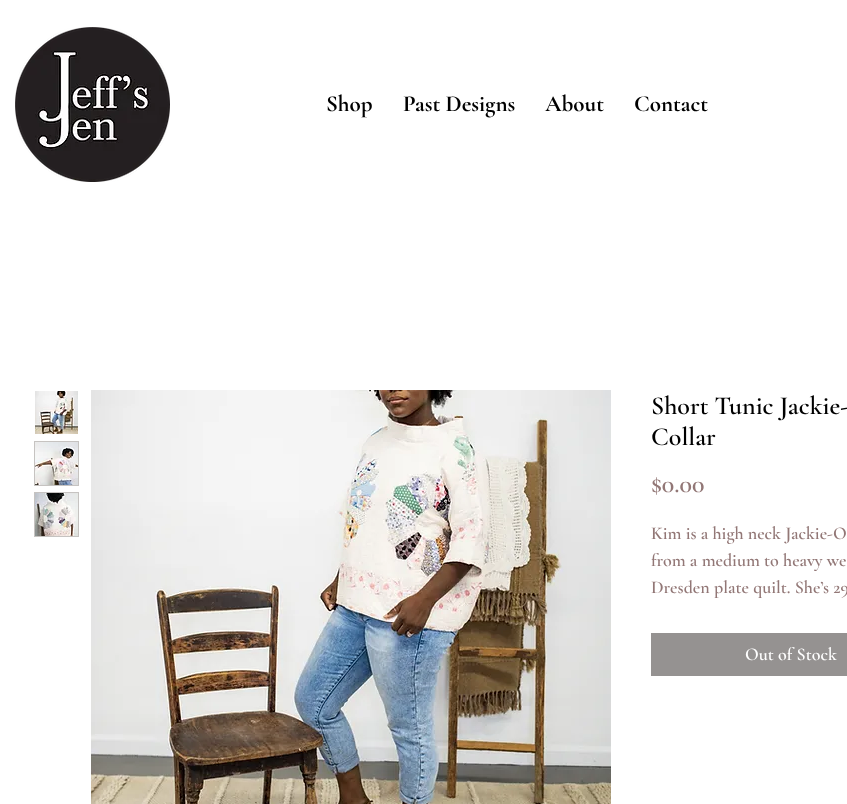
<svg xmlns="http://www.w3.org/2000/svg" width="847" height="804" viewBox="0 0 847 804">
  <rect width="100%" height="100%" fill="rgb(255,255,255)"/>
  <image x="15" y="27" width="155" height="155" href="pic1.png"/>
  <g font-family="Cormorant Garamond" font-size="23" font-weight="bold" fill="rgb(0,0,0)">
    <text x="326" y="111">Shop</text>
    <text x="403" y="111">Past Designs</text>
    <text x="545" y="111">About</text>
    <text x="634" y="111">Contact</text>
  </g>
  <image x="35" y="391" width="43" height="43" href="pic2.png"/>
  <rect x="34.5" y="441.5" width="44" height="44" fill="none" stroke="rgb(198,195,193)"/>
  <image x="35" y="442" width="43" height="43" href="pic3.png"/>
  <rect x="34.5" y="492.5" width="44" height="44" fill="none" stroke="rgb(198,195,193)"/>
  <image x="35" y="493" width="43" height="43" href="pic4.png"/>
  <image x="91" y="390" width="520" height="414" href="pic5.png"/>
  <g font-family="Cormorant Garamond" font-size="26" font-weight="600" fill="rgb(0,0,0)">
    <text>
      <tspan x="651" y="414">Short Tunic Jackie-</tspan>
      <tspan x="651" y="445">Collar</tspan>
    </text>
  </g>
  <text x="651" y="492" font-family="Cormorant Garamond" font-size="26" font-weight="600" fill="rgb(146,119,118)">$0.00</text>
  <g font-family="Cormorant Garamond" font-size="18" font-weight="600" fill="rgb(146,119,118)">
    <text>
      <tspan x="651" y="539">Kim is a high neck Jackie-O</tspan>
      <tspan x="651" y="566">from a medium to heavy we</tspan>
      <tspan x="651" y="593">Dresden plate quilt. She’s 29</tspan>
    </text>
  </g>
  <rect x="651" y="633" width="196" height="43" fill="rgb(149,146,145)"/>
  <text x="745" y="660" font-family="Cormorant Garamond" font-size="18" font-weight="600" fill="rgb(255,255,255)">Out of Stock</text>
</svg>
